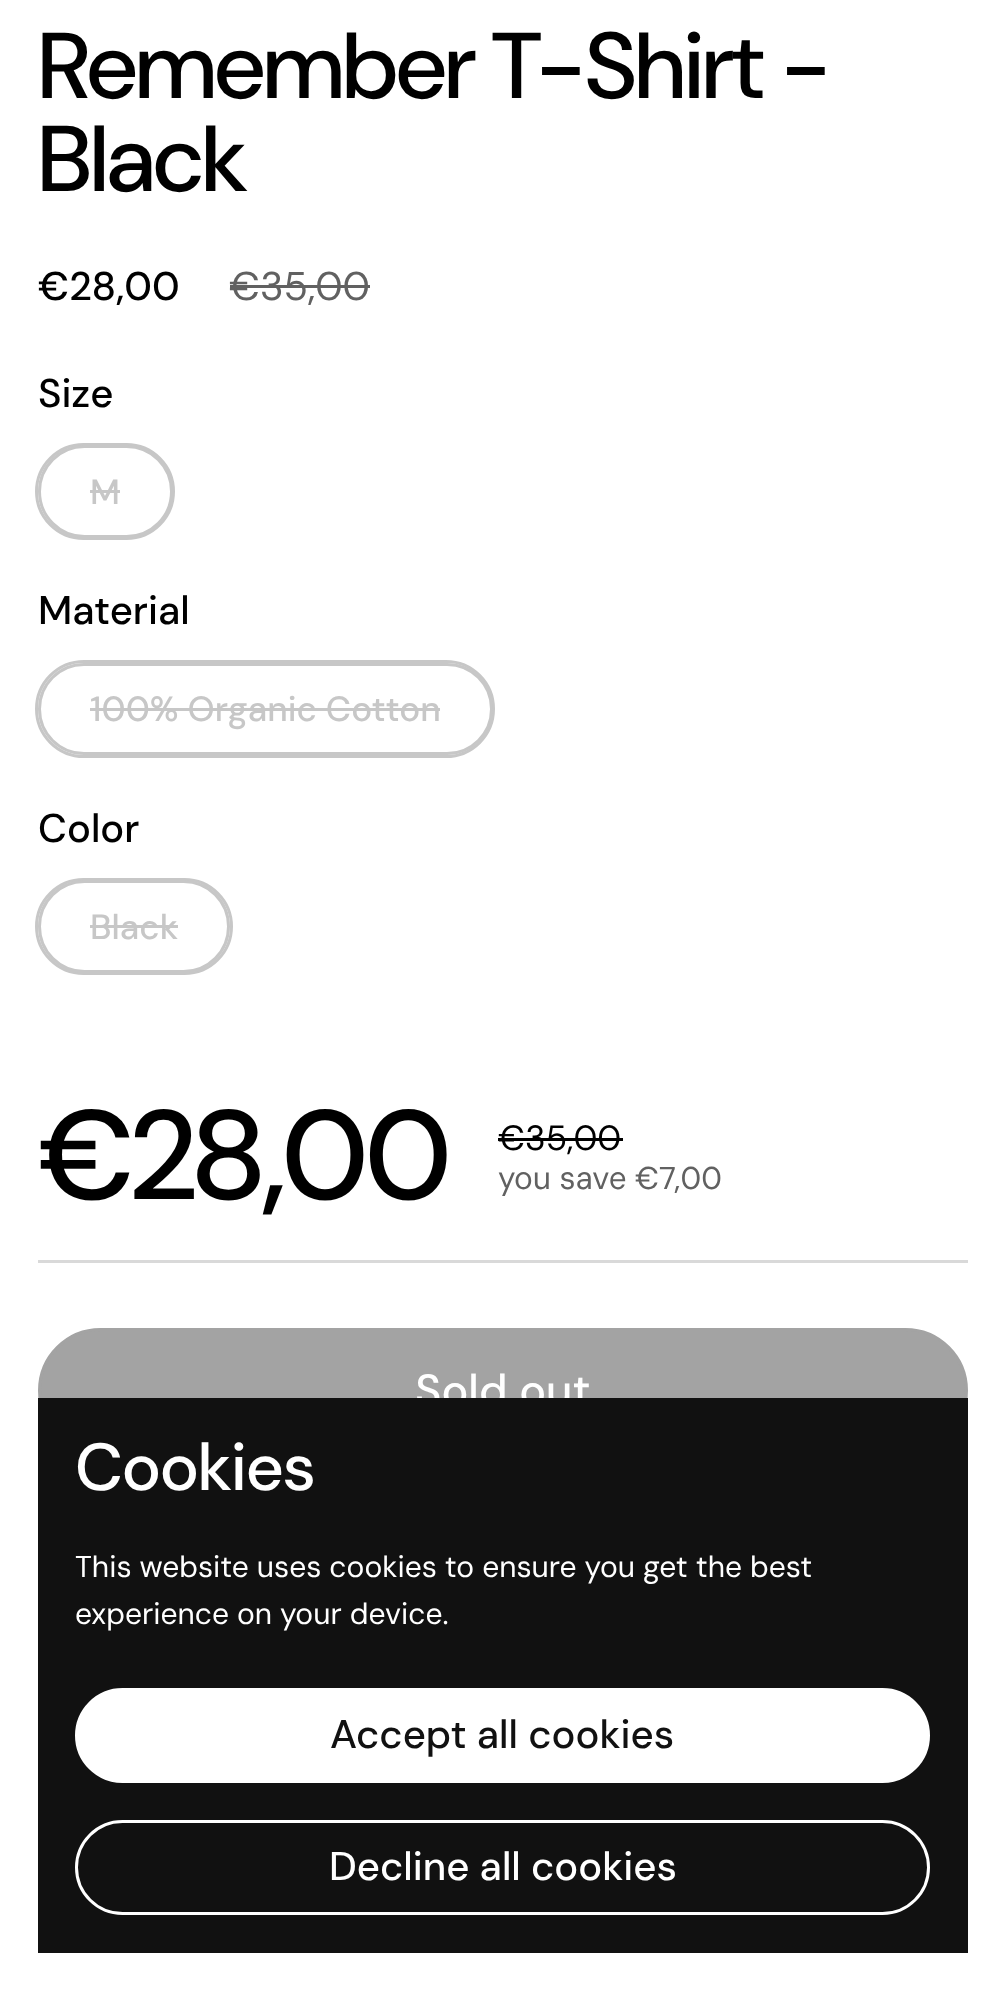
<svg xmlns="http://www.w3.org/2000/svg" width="1004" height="1990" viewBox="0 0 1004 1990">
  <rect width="100%" height="100%" fill="rgb(255,255,255)"/>
  <g font-family="DM Sans" font-size="93.25" font-weight="500" letter-spacing="-1.9" fill="rgb(0,0,0)">
    <text>
      <tspan x="38" y="98">Remember T-Shirt -</tspan>
      <tspan x="38" y="191">Black</tspan>
    </text>
  </g>
  <text x="38" y="300" font-family="'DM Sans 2'" font-size="40" font-weight="500" fill="rgb(0,0,0)">€28,00</text>
  <text x="229" y="300" font-family="'DM Sans 2'" font-size="40" fill="rgb(97,97,97)">€35,00</text>
  <rect x="230" y="285" width="140" height="3" fill="rgb(97,97,97)"/>
  <text x="38" y="407" font-family="'DM Sans 2'" font-size="40" font-weight="500" fill="rgb(0,0,0)">Size</text>
  <rect x="36.5" y="444.5" width="137" height="94" rx="47" fill="none" stroke="rgb(199,199,199)" stroke-width="3"/>
  <rect x="39.5" y="446.5" width="132" height="90" rx="45" fill="none" stroke="rgb(199,199,199)" stroke-width="3"/>
  <text x="90" y="504" font-family="'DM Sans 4'" font-size="35" font-weight="500" fill="rgb(199,199,199)">M</text>
  <rect x="90" y="490" width="30" height="3" fill="rgb(199,199,199)"/>
  <text x="38" y="624" font-family="'DM Sans 2'" font-size="40" font-weight="500" fill="rgb(0,0,0)">Material</text>
  <rect x="36.5" y="661.5" width="457" height="95" rx="47.5" fill="none" stroke="rgb(199,199,199)" stroke-width="3"/>
  <rect x="39.5" y="664.5" width="452" height="89" rx="44.5" fill="none" stroke="rgb(199,199,199)" stroke-width="3"/>
  <text x="90" y="721" font-family="'DM Sans 4'" font-size="35" font-weight="500" fill="rgb(199,199,199)">100% Organic Cotton</text>
  <rect x="90" y="708" width="350" height="3" fill="rgb(199,199,199)"/>
  <text x="38" y="842" font-family="'DM Sans 2'" font-size="40" font-weight="500" fill="rgb(0,0,0)">Color</text>
  <rect x="36.5" y="879.5" width="195" height="94" rx="47" fill="none" stroke="rgb(199,199,199)" stroke-width="3"/>
  <rect x="39.5" y="881.5" width="189" height="90" rx="45" fill="none" stroke="rgb(199,199,199)" stroke-width="3"/>
  <text x="90" y="939" font-family="'DM Sans 4'" font-size="35" font-weight="500" fill="rgb(199,199,199)">Black</text>
  <rect x="90" y="925" width="88" height="3" fill="rgb(199,199,199)"/>
  <text x="38" y="1199" font-family="'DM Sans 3'" font-size="126.5" font-weight="500" letter-spacing="-2.5" fill="rgb(0,0,0)">€28,00</text>
  <text x="498" y="1150" font-family="DM Sans" font-size="35" fill="rgb(0,0,0)">€35,00</text>
  <rect x="498" y="1138" width="125" height="3" fill="rgb(0,0,0)"/>
  <text x="498" y="1189" font-family="'DM Sans 3'" font-size="31.5" fill="rgb(97,97,97)">you save €7,00</text>
  <rect x="38" y="1260" width="930" height="3" fill="rgb(217,217,217)"/>
  <rect x="39.5" y="1329.5" width="927" height="122" rx="61" fill="rgb(163,163,163)" stroke="rgb(163,163,163)" stroke-width="3"/>
  <text x="415" y="1406" font-family="'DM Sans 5'" font-size="45" font-weight="500" fill="rgb(255,255,255)">Sold out</text>
  <rect x="38" y="1398" width="930" height="555" fill="rgb(17,17,17)"/>
  <text x="75" y="1490" font-family="'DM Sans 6'" font-size="66.5" font-weight="500" letter-spacing="-1.25" fill="rgb(255,255,255)">Cookies</text>
  <g font-family="'DM Sans 4'" font-size="30" fill="rgb(255,255,255)">
    <text>
      <tspan x="75" y="1577">This website uses cookies to ensure you get the best</tspan>
      <tspan x="75" y="1624">experience on your device.</tspan>
    </text>
  </g>
  <rect x="76.5" y="1689.5" width="852" height="92" rx="46" fill="rgb(255,255,255)" stroke="rgb(255,255,255)" stroke-width="3"/>
  <text x="330" y="1748" font-family="'DM Sans 2'" font-size="40" font-weight="500" fill="rgb(17,17,17)">Accept all cookies</text>
  <rect x="76.5" y="1821.5" width="852" height="92" rx="46" fill="none" stroke="rgb(255,255,255)" stroke-width="3"/>
  <text x="329" y="1880" font-family="'DM Sans 2'" font-size="40" font-weight="500" fill="rgb(255,255,255)">Decline all cookies</text>
</svg>
